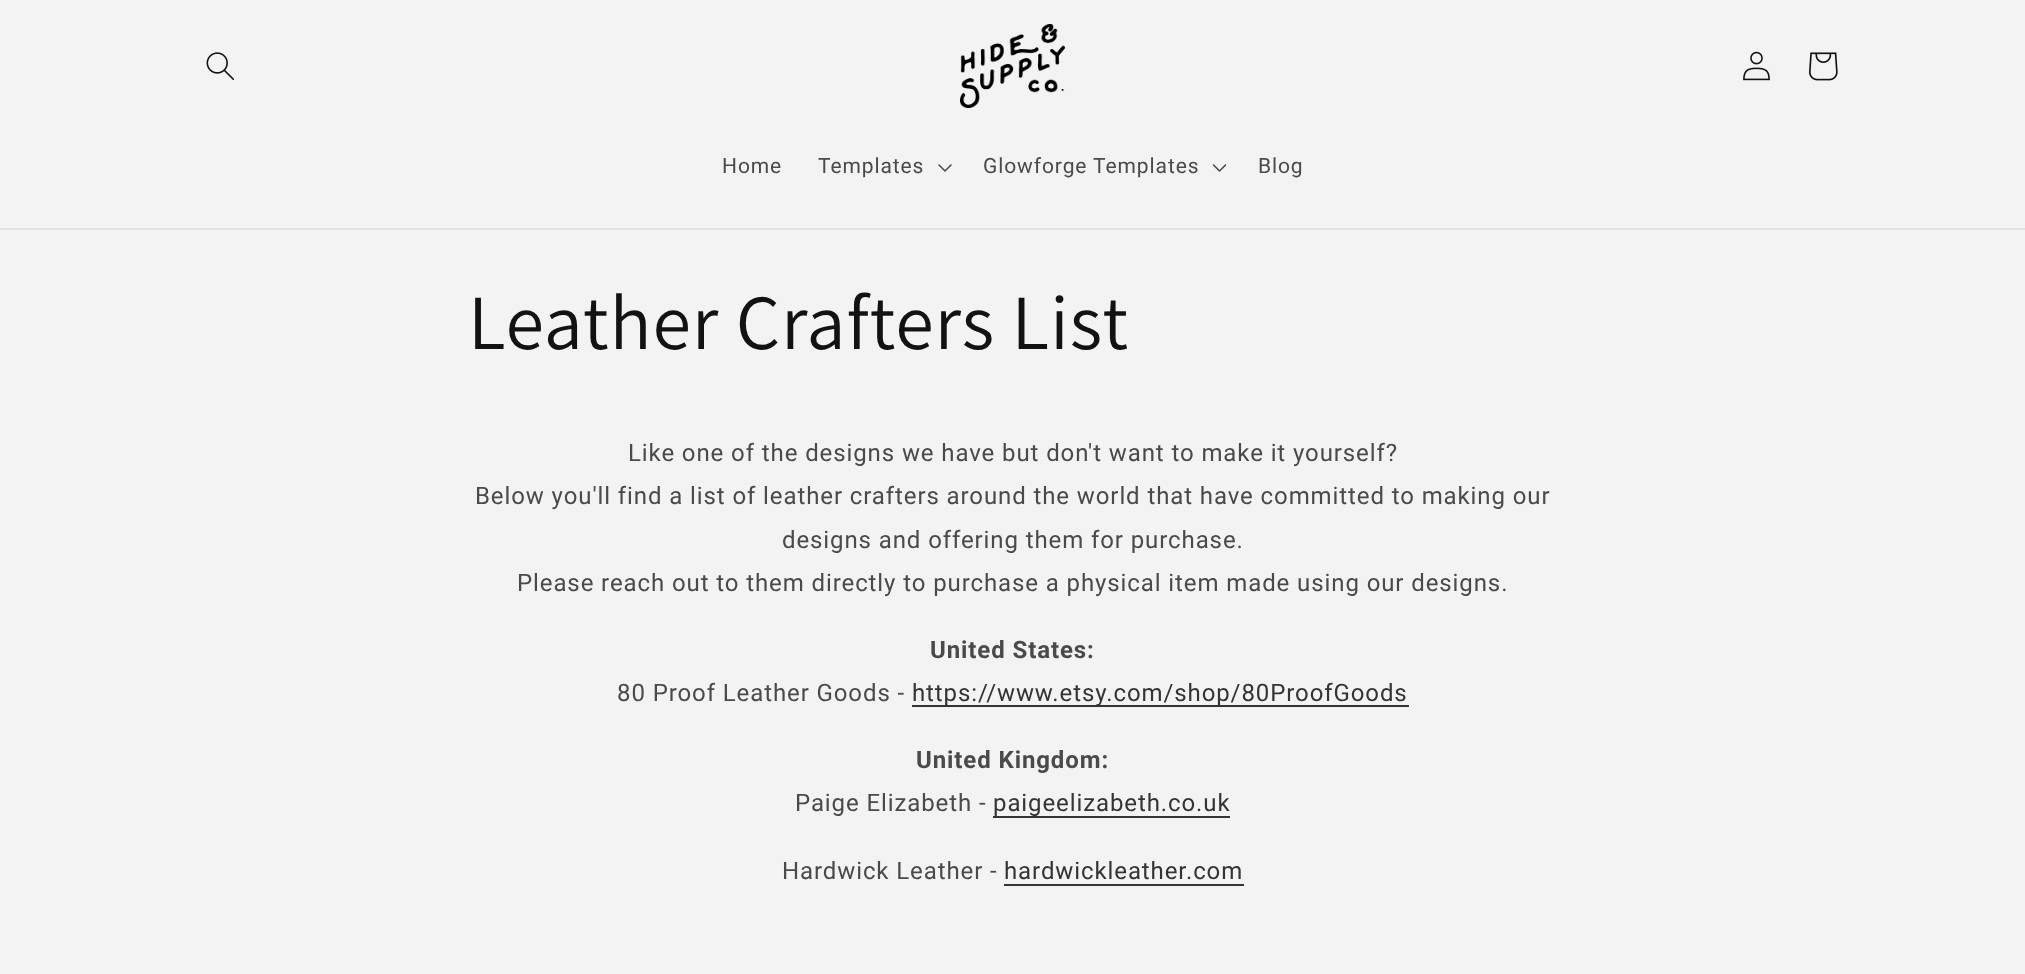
<svg xmlns="http://www.w3.org/2000/svg" width="2025" height="974" viewBox="0 0 2025 974">
  <rect width="100%" height="100%" fill="rgb(243,243,243)"/>
  <rect x="0" y="228" width="2025" height="2" fill="rgb(225,225,225)"/>
  <image x="206" y="52" width="28" height="28" href="pic1.png"/>
  <image x="960" y="24" width="105" height="84" href="pic2.png"/>
  <image x="1743" y="51" width="27" height="30" href="pic3.png"/>
  <image x="1809" y="52" width="29" height="29" href="pic4.png"/>
  <g font-family="Roboto" font-size="21" letter-spacing="0.9" fill="rgb(74,74,74)">
    <text x="722" y="173">Home</text>
    <text x="818" y="173">Templates</text>
  </g>
  <image x="938" y="164" width="14" height="8" href="pic5.png"/>
  <text x="983" y="173" font-family="Roboto" font-size="21" letter-spacing="0.9" fill="rgb(74,74,74)">Glowforge Templates</text>
  <image x="1212" y="164" width="15" height="8" href="pic6.png"/>
  <text x="1258" y="173" font-family="Roboto" font-size="21" letter-spacing="0.9" fill="rgb(74,74,74)">Blog</text>
  <text x="468" y="349" font-family="Assistant" font-size="78" letter-spacing="0.9" fill="rgb(18,18,18)">Leather Crafters List</text>
  <g font-family="Roboto" font-size="24" letter-spacing="0.9" fill="rgb(74,74,74)">
    <text x="628" y="461">Like one of the designs we have but don't want to make it yourself?</text>
    <text x="475" y="504">Below you'll find a list of leather crafters around the world that have committed to making our</text>
    <text x="782" y="548">designs and offering them for purchase.</text>
    <text x="517" y="591">Please reach out to them directly to purchase a physical item made using our designs.</text>
  </g>
  <text x="930" y="658" font-family="Roboto" font-size="24" font-weight="bold" letter-spacing="0.9" fill="rgb(74,74,74)">United States:</text>
  <text x="617" y="701" font-family="Roboto" font-size="24" letter-spacing="0.9" fill="rgb(74,74,74)">80 Proof Leather Goods -</text>
  <rect x="912" y="705" width="497" height="2" fill="rgb(52,52,52)"/>
  <text x="912" y="701" font-family="Roboto" font-size="24" letter-spacing="0.9" fill="rgb(52,52,52)">https://www.etsy.com/shop/80ProofGoods</text>
  <text x="916" y="768" font-family="Roboto" font-size="24" font-weight="bold" letter-spacing="0.9" fill="rgb(74,74,74)">United Kingdom:</text>
  <text x="795" y="811" font-family="Roboto" font-size="24" letter-spacing="0.9" fill="rgb(74,74,74)">Paige Elizabeth -</text>
  <text x="993" y="811" font-family="Roboto" font-size="24" letter-spacing="0.9" fill="rgb(52,52,52)">paigeelizabeth.co.uk</text>
  <rect x="993" y="816" width="237" height="2" fill="rgb(52,52,52)"/>
  <text x="782" y="879" font-family="Roboto" font-size="24" letter-spacing="0.9" fill="rgb(74,74,74)">Hardwick Leather -</text>
  <text x="1004" y="879" font-family="Roboto" font-size="24" letter-spacing="0.9" fill="rgb(52,52,52)">hardwickleather.com</text>
  <rect x="1004" y="884" width="240" height="2" fill="rgb(52,52,52)"/>
</svg>
